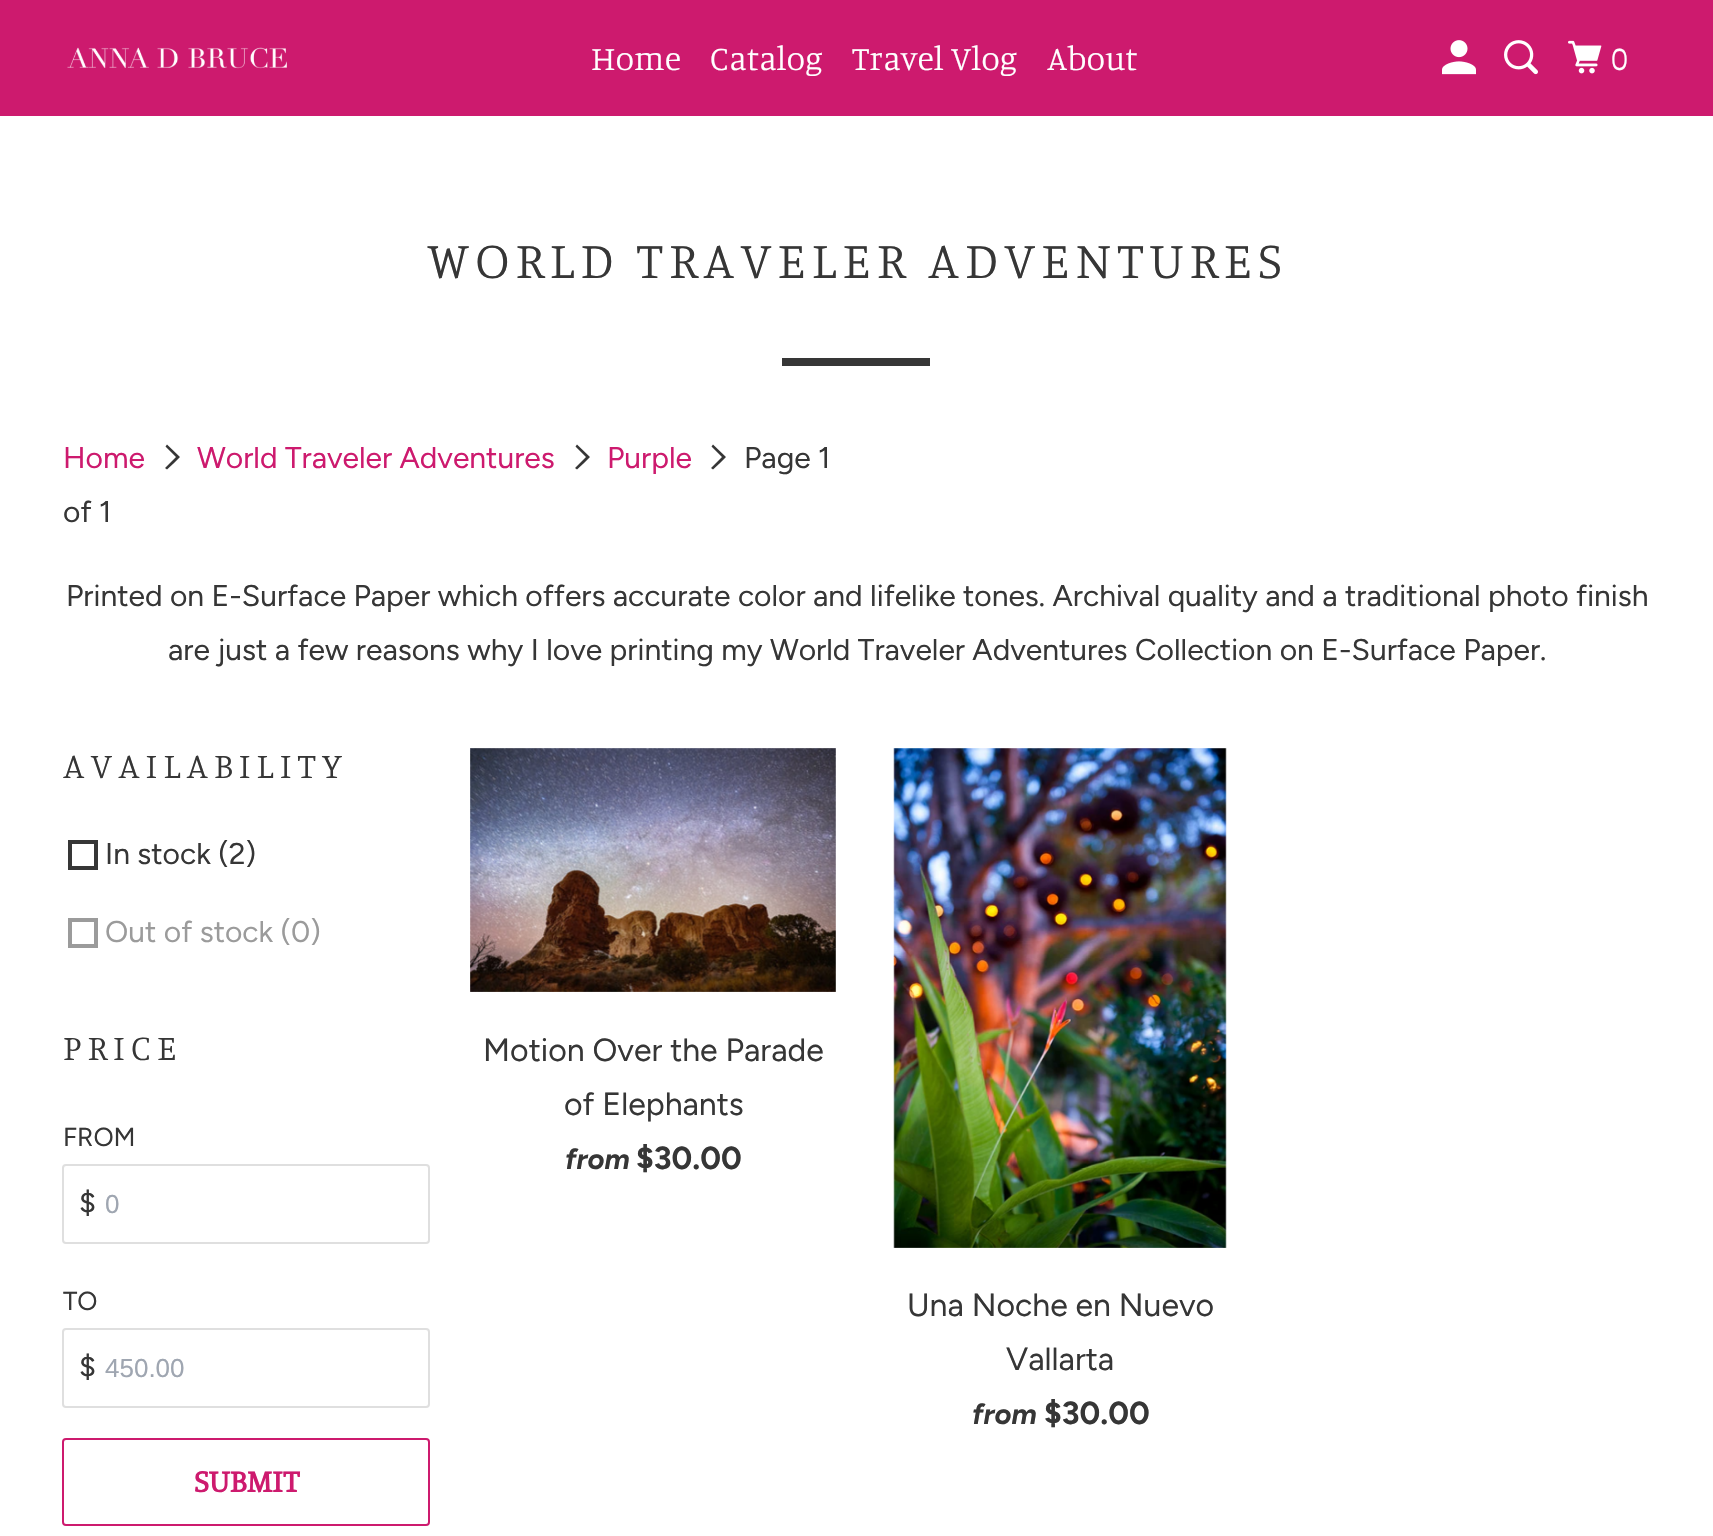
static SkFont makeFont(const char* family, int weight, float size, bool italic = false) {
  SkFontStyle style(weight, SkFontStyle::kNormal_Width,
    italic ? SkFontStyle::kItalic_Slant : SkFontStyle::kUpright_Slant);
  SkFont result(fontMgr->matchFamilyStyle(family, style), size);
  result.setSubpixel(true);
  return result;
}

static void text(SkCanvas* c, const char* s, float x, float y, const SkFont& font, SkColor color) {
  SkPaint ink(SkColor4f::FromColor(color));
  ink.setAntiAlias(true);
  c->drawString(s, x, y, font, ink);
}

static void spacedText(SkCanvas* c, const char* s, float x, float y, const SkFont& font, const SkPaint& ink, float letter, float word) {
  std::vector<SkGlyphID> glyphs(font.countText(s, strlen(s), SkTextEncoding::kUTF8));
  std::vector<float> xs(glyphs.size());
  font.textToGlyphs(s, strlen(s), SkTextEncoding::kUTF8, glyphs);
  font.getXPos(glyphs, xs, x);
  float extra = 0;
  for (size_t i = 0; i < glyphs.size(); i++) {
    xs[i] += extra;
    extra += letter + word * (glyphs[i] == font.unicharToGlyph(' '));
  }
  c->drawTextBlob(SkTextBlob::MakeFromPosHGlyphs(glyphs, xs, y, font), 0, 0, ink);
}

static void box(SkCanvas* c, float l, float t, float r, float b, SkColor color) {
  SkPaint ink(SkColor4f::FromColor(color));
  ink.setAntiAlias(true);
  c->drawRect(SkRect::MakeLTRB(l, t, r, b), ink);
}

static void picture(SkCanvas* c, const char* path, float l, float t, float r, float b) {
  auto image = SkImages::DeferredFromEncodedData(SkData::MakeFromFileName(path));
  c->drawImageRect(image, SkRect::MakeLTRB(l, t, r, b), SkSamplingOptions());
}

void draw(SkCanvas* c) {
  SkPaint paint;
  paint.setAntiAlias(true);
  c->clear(0xffffffff);
  box(c, 0, 0, 1713, 116, 0xffcd1a6e);
  picture(c, "img_01.png", 67, 47, 287, 69);
  SkFont face1 = makeFont("Manuale", 300, 34);
  text(c, "Home", 591, 70, face1, 0xffffffff);
  text(c, "Catalog", 710, 70, face1, 0xffffffff);
  text(c, "Travel Vlog", 852, 70, face1, 0xffffffff);
  text(c, "About", 1047, 70, face1, 0xffffffff);
  picture(c, "img_02.png", 1442, 40, 1476, 75);
  picture(c, "img_03.png", 1504, 40, 1538, 75);
  picture(c, "img_04.png", 1568, 40, 1602, 74);
  text(c, "0", 1611, 70, face1, 0xffffffff);
  SkFont face2 = makeFont("Manuale", 300, 52);
  paint.setColor(0xff363636);
  spacedText(c, "WORLD TRAVELER ADVENTURES", 427, 278, face2, paint, 6, 0);
  box(c, 782, 358, 930, 366, 0xff363636);
  SkFont face3 = makeFont("Figtree", 400, 30);
  text(c, "Home", 63, 468, face3, 0xffcd1a6e);
  c->drawPath(SkPathBuilder().moveTo(173.5f, 463.5f).lineTo(167, 469.5f).lineTo(165, 468).lineTo(176, 457).lineTo(165.5f, 446.5f).lineTo(167, 444.5f).lineTo(180, 457).close().detach(), paint);
  text(c, "World Traveler Adventures", 197, 468, face3, 0xffcd1a6e);
  c->drawPath(SkPathBuilder().moveTo(583.5f, 463.5f).lineTo(577, 469.5f).lineTo(575, 468).lineTo(586, 457).lineTo(575.5f, 446.5f).lineTo(577, 444.5f).lineTo(590, 457).close().detach(), paint);
  text(c, "Purple", 607, 468, face3, 0xffcd1a6e);
  c->drawPath(SkPathBuilder().moveTo(719.5f, 463.5f).lineTo(713, 469.5f).lineTo(711, 468).lineTo(722, 457).lineTo(711.5f, 446.5f).lineTo(713, 444.5f).lineTo(726, 457).close().detach(), paint);
  text(c, "Page 1", 744, 468, face3, 0xff363636);
  text(c, "of 1", 63, 522, face3, 0xff363636);
  text(c, "Printed on E-Surface Paper which offers accurate color and lifelike tones. Archival quality and a traditional photo finish", 66, 606, face3, 0xff363636);
  text(c, "are just a few reasons why I love printing my World Traveler Adventures Collection on E-Surface Paper.", 168, 660, face3, 0xff363636);
  SkFont face4 = makeFont("Manuale", 300, 36);
  spacedText(c, "AVAILABILITY", 63, 778, face4, paint, 6, 0);
  paint.setStyle(SkPaint::kStroke_Style);
  paint.setStrokeWidth(4);
  c->drawRect(SkRect::MakeLTRB(70, 842, 96, 868), paint);
  text(c, "In stock (2)", 105, 864, face3, 0xff363636);
  paint.setColor(0xff9b9b9b);
  c->drawRect(SkRect::MakeLTRB(70, 920, 96, 946), paint);
  text(c, "Out of stock (0)", 105, 942, face3, 0xff9b9b9b);
  paint.setStyle(SkPaint::kFill_Style);
  paint.setColor(0xff363636);
  spacedText(c, "PRICE", 63, 1060, face4, paint, 6, 0);
  SkFont face5 = makeFont("Figtree", 400, 26);
  text(c, "FROM", 63, 1146, face5, 0xff363636);
  paint.setStyle(SkPaint::kStroke_Style);
  paint.setStrokeWidth(2);
  paint.setColor(0xffdfdfdf);
  c->drawRoundRect(SkRect::MakeLTRB(63, 1165, 429, 1243), 3, 3, paint);
  text(c, "$", 79, 1213, face3, 0xff363636);
  SkFont face6 = makeFont("Liberation Sans", 400, 26);
  text(c, "0", 105, 1213, face6, 0xff9fa6b1);
  text(c, "TO", 63, 1310, face5, 0xff363636);
  c->drawRoundRect(SkRect::MakeLTRB(63, 1329, 429, 1407), 3, 3, paint);
  text(c, "$", 79, 1377, face3, 0xff363636);
  text(c, "450.00", 105, 1377, face6, 0xff9fa6b1);
  paint.setColor(0xffcd1a6e);
  c->drawRoundRect(SkRect::MakeLTRB(63, 1439, 429, 1525), 3, 3, paint);
  SkFont face7 = makeFont("Manuale", 700, 32);
  text(c, "SUBMIT", 194, 1492, face7, 0xffcd1a6e);
  picture(c, "img_05.png", 470, 748, 836, 992);
  SkFont face8 = makeFont("Figtree", 400, 32);
  text(c, "Motion Over the Parade", 483, 1061, face8, 0xff363636);
  text(c, "of Elephants", 564, 1115, face8, 0xff363636);
  SkFont face9 = makeFont("Figtree", 700, 29, true);
  text(c, "from", 565, 1169, face9, 0xff363636);
  SkFont face10 = makeFont("Figtree", 700, 32);
  text(c, "$30.00", 636, 1169, face10, 0xff363636);
  picture(c, "img_06.png", 893, 748, 1227, 1248);
  text(c, "Una Noche en Nuevo", 907, 1316, face8, 0xff363636);
  text(c, "Vallarta", 1006, 1370, face8, 0xff363636);
  text(c, "from", 972, 1424, face9, 0xff363636);
  text(c, "$30.00", 1044, 1424, face10, 0xff363636);
}
